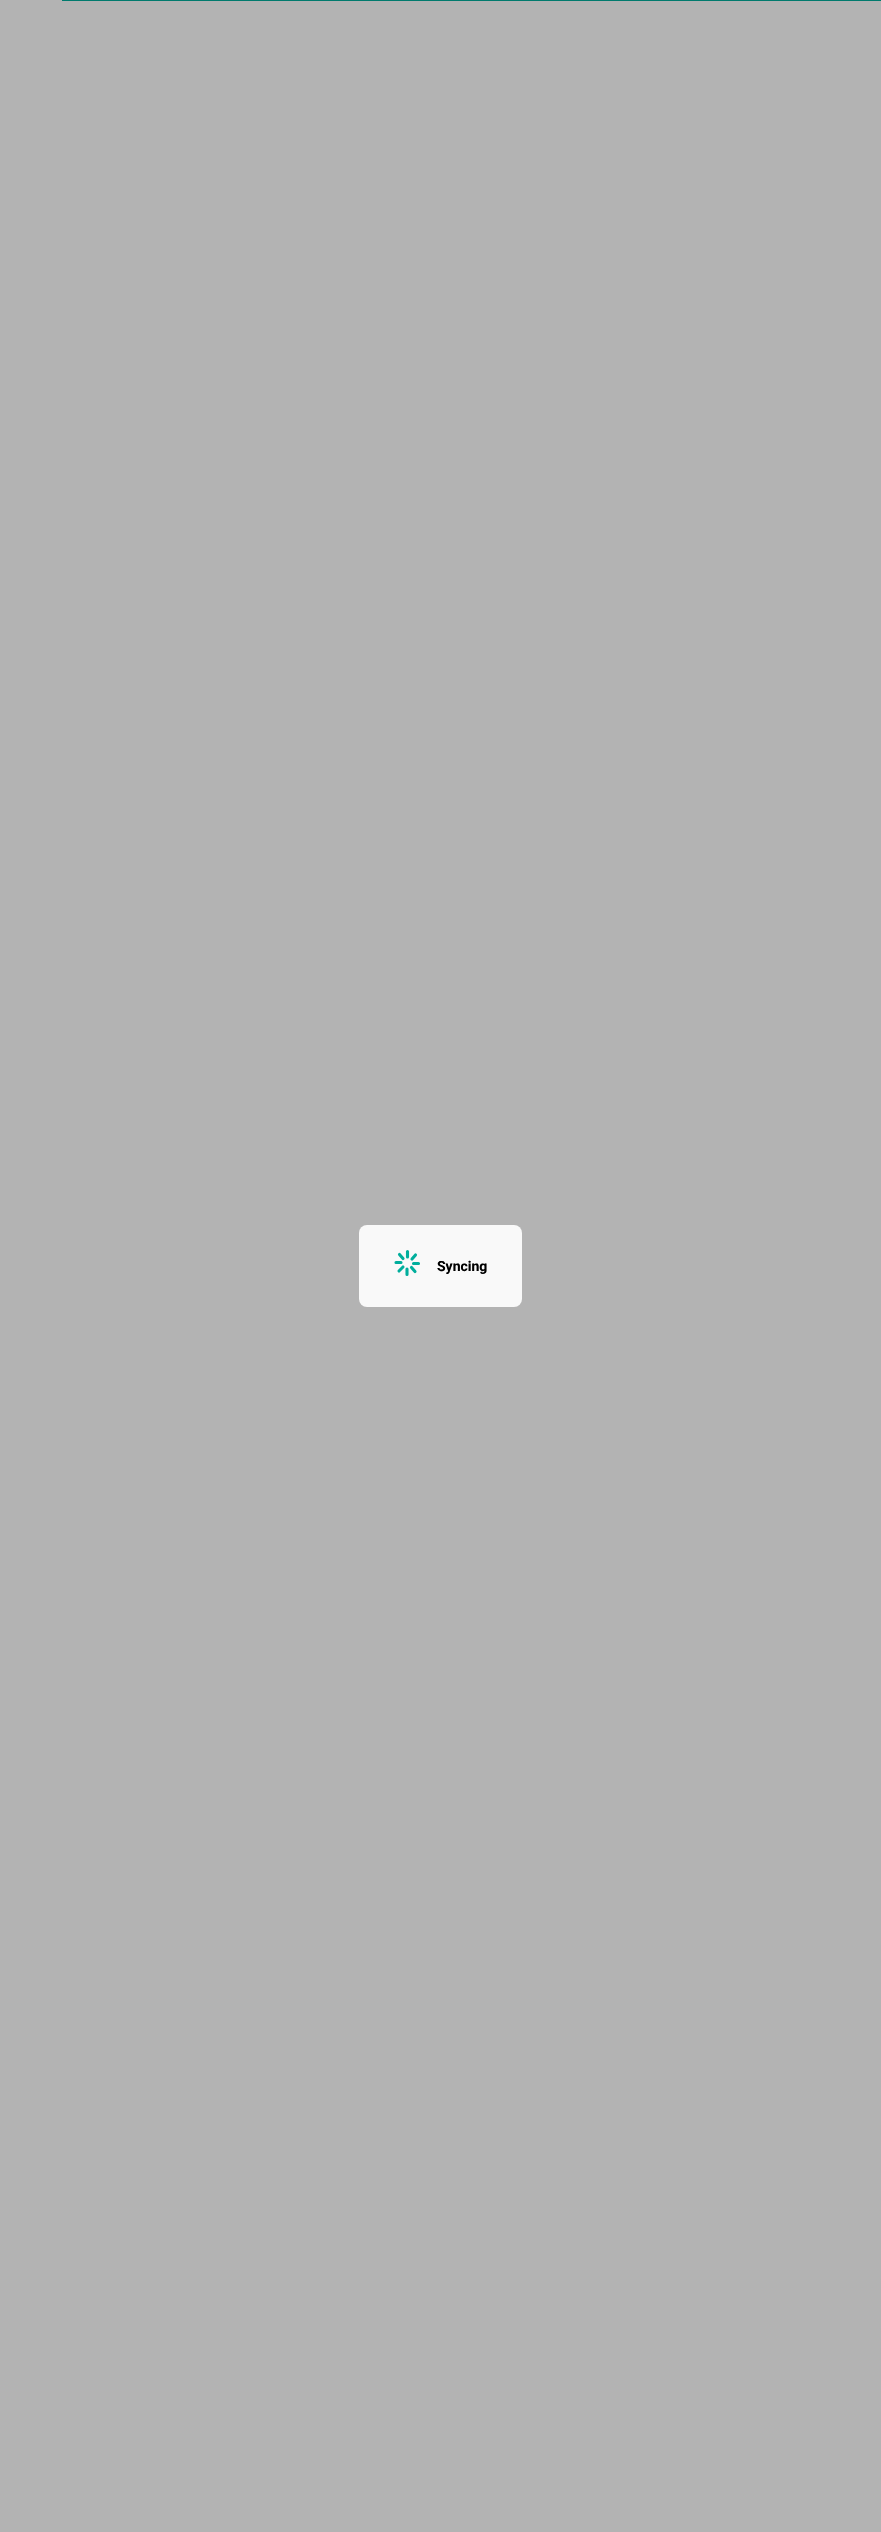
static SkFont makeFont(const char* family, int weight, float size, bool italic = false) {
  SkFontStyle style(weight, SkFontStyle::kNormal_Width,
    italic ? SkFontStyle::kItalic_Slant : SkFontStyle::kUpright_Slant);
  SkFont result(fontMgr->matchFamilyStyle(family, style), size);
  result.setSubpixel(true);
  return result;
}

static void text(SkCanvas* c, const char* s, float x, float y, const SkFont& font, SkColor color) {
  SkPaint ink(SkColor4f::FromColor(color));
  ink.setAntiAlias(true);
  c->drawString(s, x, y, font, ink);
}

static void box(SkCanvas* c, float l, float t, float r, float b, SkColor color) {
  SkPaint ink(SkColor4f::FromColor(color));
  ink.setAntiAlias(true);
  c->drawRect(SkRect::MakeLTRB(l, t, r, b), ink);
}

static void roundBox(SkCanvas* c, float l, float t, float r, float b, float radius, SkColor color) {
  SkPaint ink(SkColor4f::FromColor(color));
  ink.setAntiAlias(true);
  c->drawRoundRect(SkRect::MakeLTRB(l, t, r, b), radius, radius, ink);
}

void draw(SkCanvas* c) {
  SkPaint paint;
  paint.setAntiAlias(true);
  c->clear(0xffb3b3b3);
  box(c, 62, 0, 881, 1, 0xff007a6d);
  roundBox(c, 359, 1225, 522, 1307, 8, 0xfff9f9f9);
  paint.setStyle(SkPaint::kStroke_Style);
  paint.setStrokeWidth(3.1f);
  paint.setStrokeCap(SkPaint::kRound_Cap);
  paint.setColor(0xff00ae9c);
  c->drawPath(SkPathBuilder().moveTo(407.5f, 1257).lineTo(407.5f, 1251.5f).moveTo(412, 1259).lineTo(415.5f, 1255).moveTo(413.5f, 1263.5f).lineTo(418.5f, 1263.5f).moveTo(411.5f, 1267.5f).lineTo(415, 1271.5f).moveTo(407, 1269).lineTo(407, 1274.5f).moveTo(403, 1267).lineTo(399, 1271).moveTo(401, 1262.5f).lineTo(396, 1262.5f).moveTo(403, 1258.5f).lineTo(399.5f, 1254.5f).detach(), paint);
  SkFont face1 = makeFont("Roboto", 700, 14);
  text(c, "Syncing", 437, 1271, face1, 0xff000000);
}
